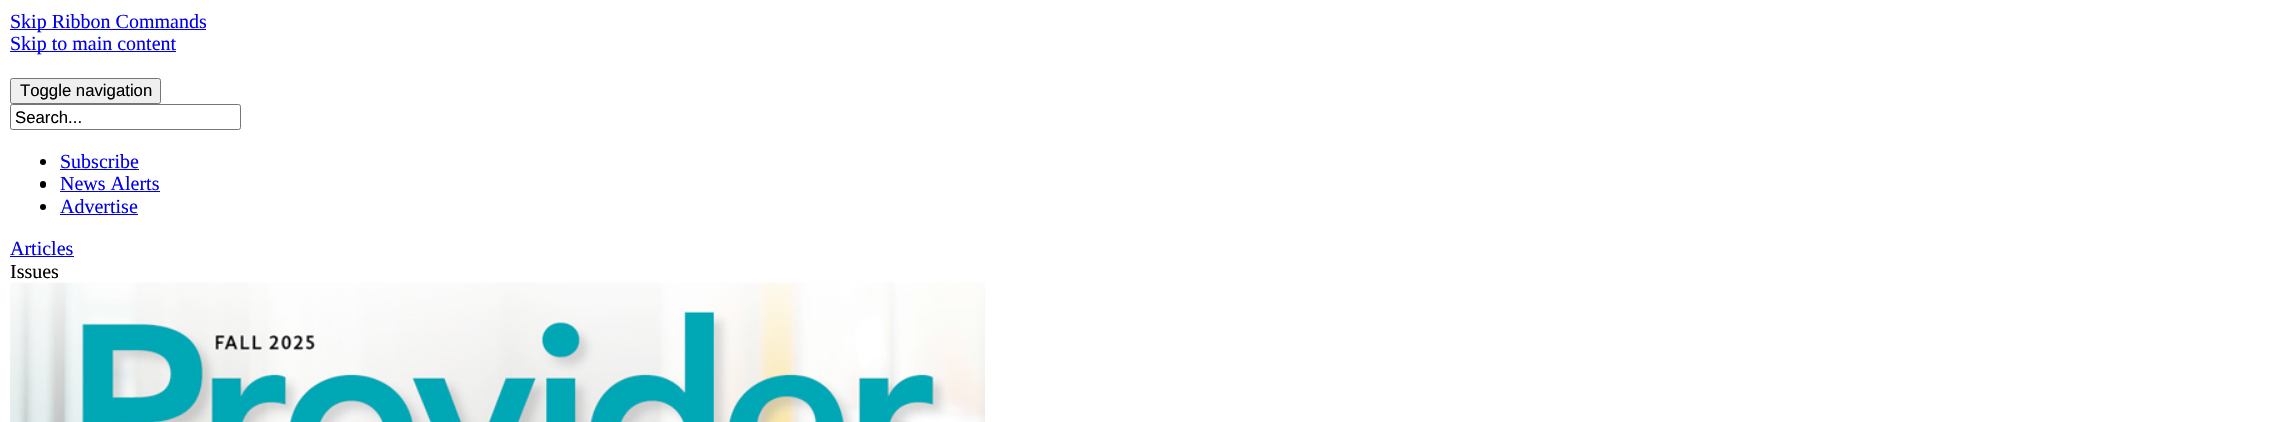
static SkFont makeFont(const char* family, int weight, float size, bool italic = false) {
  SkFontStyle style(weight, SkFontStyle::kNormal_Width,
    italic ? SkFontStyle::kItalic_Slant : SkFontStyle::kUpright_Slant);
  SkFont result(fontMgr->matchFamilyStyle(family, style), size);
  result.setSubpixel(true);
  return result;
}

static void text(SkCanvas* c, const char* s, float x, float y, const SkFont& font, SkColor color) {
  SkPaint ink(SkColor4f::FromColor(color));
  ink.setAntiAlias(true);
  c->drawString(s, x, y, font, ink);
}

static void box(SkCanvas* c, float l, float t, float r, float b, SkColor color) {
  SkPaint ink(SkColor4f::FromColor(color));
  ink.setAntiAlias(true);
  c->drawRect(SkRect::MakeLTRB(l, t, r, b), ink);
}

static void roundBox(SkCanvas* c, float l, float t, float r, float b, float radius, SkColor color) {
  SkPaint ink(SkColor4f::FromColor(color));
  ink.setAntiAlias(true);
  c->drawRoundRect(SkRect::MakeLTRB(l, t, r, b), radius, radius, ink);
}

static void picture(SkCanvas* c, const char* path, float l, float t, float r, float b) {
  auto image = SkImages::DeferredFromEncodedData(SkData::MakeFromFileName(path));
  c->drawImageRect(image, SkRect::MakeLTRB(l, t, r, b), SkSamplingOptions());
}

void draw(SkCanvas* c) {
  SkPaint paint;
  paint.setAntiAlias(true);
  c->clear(0xffffffff);
  box(c, 10, 29, 206, 30, 0xff0000ee);
  SkFont face1 = makeFont("Liberation Serif", 400, 20);
  text(c, "Skip Ribbon Commands", 10, 28, face1, 0xff0000ee);
  box(c, 10, 51, 176, 52, 0xff0000ee);
  text(c, "Skip to main content", 10, 50, face1, 0xff0000ee);
  paint.setColor(0xffefefef);
  c->drawRoundRect(SkRect::MakeLTRB(10.5f, 78.5f, 160.5f, 103.5f), 2, 2, paint);
  paint.setStyle(SkPaint::kStroke_Style);
  paint.setStrokeWidth(1);
  paint.setColor(0xff767676);
  c->drawRoundRect(SkRect::MakeLTRB(10.5f, 78.5f, 160.5f, 103.5f), 2, 2, paint);
  SkFont face2 = makeFont("Liberation Sans", 400, 16.75f);
  text(c, "Toggle navigation", 20, 96, face2, 0xff000000);
  c->drawRoundRect(SkRect::MakeLTRB(10.5f, 104.5f, 240.5f, 129.5f), 2, 2, paint);
  text(c, "Search...", 15, 123, face2, 0xff000000);
  paint.setStyle(SkPaint::kFill_Style);
  paint.setColor(0xff000000);
  c->drawCircle(43, 162, 3, paint);
  text(c, "Subscribe", 60, 168, face1, 0xff0000ee);
  box(c, 60, 169, 139, 170, 0xff0000ee);
  roundBox(c, 40, 181, 46, 188, 3, 0xff000000);
  text(c, "News Alerts", 60, 190, face1, 0xff0000ee);
  box(c, 60, 191, 160, 192, 0xff0000ee);
  c->drawCircle(43, 207, 3, paint);
  text(c, "Advertise", 60, 213, face1, 0xff0000ee);
  box(c, 60, 214, 138, 215, 0xff0000ee);
  text(c, "Articles", 10, 255, face1, 0xff0000ee);
  box(c, 10, 256, 74, 257, 0xff0000ee);
  text(c, "Issues", 10, 278, face1, 0xff000000);
  picture(c, "img_01.png", 10, 282, 985, 422);
}
